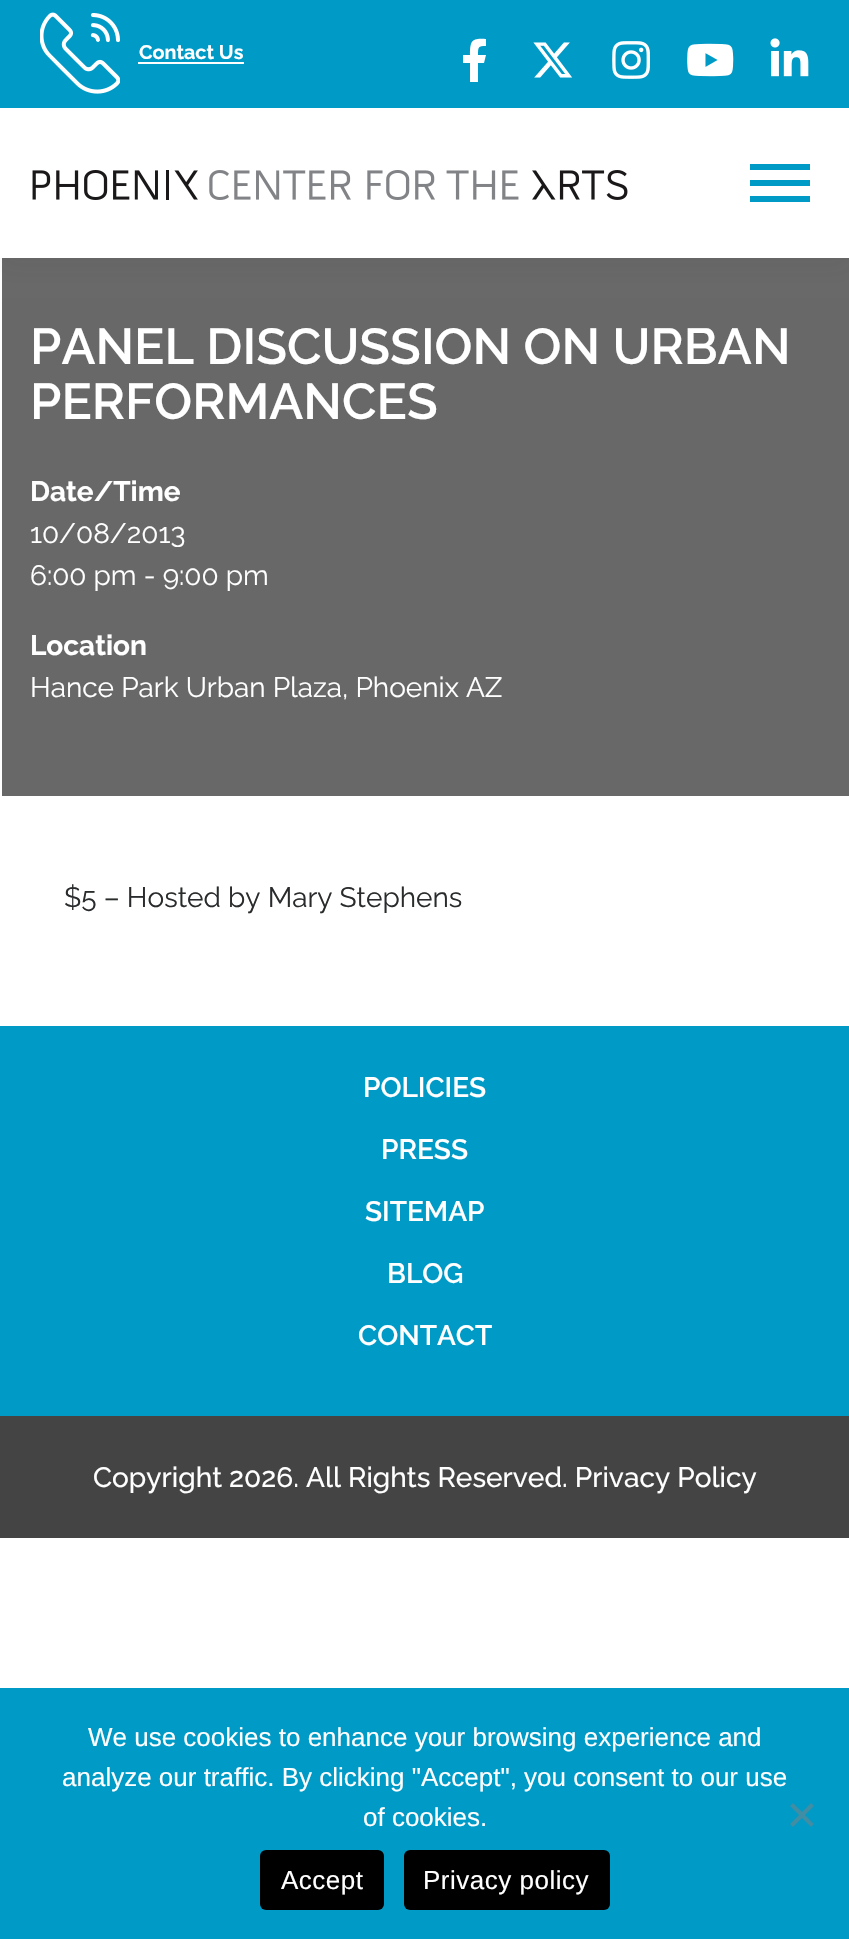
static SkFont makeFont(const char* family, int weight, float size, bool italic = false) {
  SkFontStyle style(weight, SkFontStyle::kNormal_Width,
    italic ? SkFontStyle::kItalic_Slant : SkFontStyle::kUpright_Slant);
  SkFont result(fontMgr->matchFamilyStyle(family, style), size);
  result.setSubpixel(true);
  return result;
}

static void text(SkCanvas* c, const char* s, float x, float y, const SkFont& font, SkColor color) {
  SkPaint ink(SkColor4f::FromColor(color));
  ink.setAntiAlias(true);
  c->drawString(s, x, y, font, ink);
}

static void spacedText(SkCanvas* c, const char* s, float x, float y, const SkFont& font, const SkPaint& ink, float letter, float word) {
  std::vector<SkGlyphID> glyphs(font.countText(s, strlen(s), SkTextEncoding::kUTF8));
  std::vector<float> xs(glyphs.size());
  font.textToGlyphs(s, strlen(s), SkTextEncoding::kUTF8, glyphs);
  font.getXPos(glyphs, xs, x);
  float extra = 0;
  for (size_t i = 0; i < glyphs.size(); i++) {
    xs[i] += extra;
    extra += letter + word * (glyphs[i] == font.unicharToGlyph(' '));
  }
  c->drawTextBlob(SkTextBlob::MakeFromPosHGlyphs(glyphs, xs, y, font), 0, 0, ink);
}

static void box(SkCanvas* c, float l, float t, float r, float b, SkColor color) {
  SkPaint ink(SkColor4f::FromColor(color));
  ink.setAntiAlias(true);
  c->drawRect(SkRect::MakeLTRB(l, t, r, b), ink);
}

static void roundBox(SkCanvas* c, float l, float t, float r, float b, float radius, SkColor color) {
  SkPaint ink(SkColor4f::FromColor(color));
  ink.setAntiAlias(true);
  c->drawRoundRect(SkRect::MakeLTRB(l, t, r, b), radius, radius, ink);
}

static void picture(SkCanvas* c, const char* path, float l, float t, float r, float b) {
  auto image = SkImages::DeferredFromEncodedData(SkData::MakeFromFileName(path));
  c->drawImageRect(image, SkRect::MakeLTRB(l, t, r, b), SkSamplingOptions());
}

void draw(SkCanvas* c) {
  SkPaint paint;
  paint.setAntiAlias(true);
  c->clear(0xffffffff);
  box(c, 2, 258, 849, 796, 0xff686868);
  paint.setColor(0x0f323232);
  paint.setMaskFilter(SkMaskFilter::MakeBlur(kNormal_SkBlurStyle, 10));
  c->drawRect(SkRect::MakeLTRB(0, 10, 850, 268), paint);
  paint.setMaskFilter(nullptr);
  box(c, 0, 108, 849, 258, 0xffffffff);
  box(c, 0, 0, 849, 108, 0xff009ac7);
  picture(c, "img_01.png", 40, 12, 120, 94);
  SkFont face1 = makeFont("Raleway", 700, 19.75f);
  text(c, "Contact Us", 139, 59, face1, 0xffffffff);
  box(c, 138, 62, 244, 64, 0xffffffff);
  paint.setColor(0xffffffff);
  c->drawPath(SkPathBuilder().moveTo(484, 63).lineTo(478, 63).lineTo(478, 82).lineTo(470, 82).lineTo(470, 63).lineTo(463, 63).lineTo(463, 55).lineTo(470, 55).cubicTo(470, 40, 472, 38, 486, 39).lineTo(486, 46).cubicTo(478, 46, 478, 47, 478, 55).lineTo(486, 55).close().detach(), paint);
  picture(c, "img_02.png", 533, 42, 572, 78);
  picture(c, "img_03.png", 612, 41, 650, 79);
  picture(c, "img_04.png", 687, 43, 734, 77);
  picture(c, "img_05.png", 770, 38, 809, 77);
  picture(c, "img_06.png", 32, 170, 628, 200);
  box(c, 750, 180, 810, 186, 0xff009ac7);
  box(c, 750, 164, 810, 170, 0xff009ac7);
  box(c, 750, 196, 810, 202, 0xff009ac7);
  SkFont face2 = makeFont("Raleway", 600, 50.4f);
  text(c, "PANEL DISCUSSION ON URBAN", 30, 364, face2, 0xffffffff);
  text(c, "PERFORMANCES", 30, 419, face2, 0xffffffff);
  SkFont face3 = makeFont("Raleway", 700, 28);
  text(c, "Date/Time", 30, 501, face3, 0xffffffff);
  SkFont face4 = makeFont("Raleway", 400, 28);
  text(c, "10/08/2013", 30, 543, face4, 0xffffffff);
  text(c, "6:00 pm - 9:00 pm", 30, 585, face4, 0xffffffff);
  text(c, "Location", 30, 655, face3, 0xffffffff);
  text(c, "Hance Park Urban Plaza, Phoenix AZ", 30, 697, face4, 0xffffffff);
  text(c, "$5 – Hosted by Mary Stephens", 64, 907, face4, 0xff292b2c);
  box(c, 0, 1026, 849, 1416, 0xff009ac7);
  SkFont face5 = makeFont("Raleway", 600, 28);
  text(c, "POLICIES", 363, 1097, face5, 0xffffffff);
  text(c, "PRESS", 381, 1159, face5, 0xffffffff);
  text(c, "SITEMAP", 365, 1221, face5, 0xffffffff);
  text(c, "BLOG", 387, 1283, face5, 0xffffffff);
  text(c, "CONTACT", 358, 1345, face5, 0xffffffff);
  box(c, 0, 1416, 849, 1538, 0xff444444);
  SkFont face6 = makeFont("Raleway", 500, 28);
  text(c, "Copyright 2026. All Rights Reserved. Privacy Policy", 93, 1487, face6, 0xffffffff);
  box(c, 0, 1688, 849, 1939, 0xff009ac7);
  SkFont face7 = makeFont("Liberation Sans", 400, 26);
  text(c, "We use cookies to enhance your browsing experience and", 88, 1746, face7, 0xffffffff);
  text(c, "analyze our traffic. By clicking \"Accept\", you consent to our use", 62, 1786, face7, 0xffffffff);
  text(c, "of cookies.", 363, 1826, face7, 0xffffffff);
  paint.setColor(0xff408da4);
  c->drawPath(SkPathBuilder().moveTo(811, 1803).lineTo(814, 1806).lineTo(793, 1827).lineTo(790, 1824).close().detach(), paint);
  c->drawPath(SkPathBuilder().moveTo(790, 1806).lineTo(793, 1803).lineTo(814, 1824).lineTo(811, 1827).close().detach(), paint);
  roundBox(c, 260, 1850, 384, 1910, 6, 0xff000000);
  paint.setColor(0xffffffff);
  spacedText(c, "Accept", 281, 1889, face7, paint, 0.5f, 0);
  roundBox(c, 404, 1850, 610, 1910, 6, 0xff000000);
  spacedText(c, "Privacy policy", 423, 1889, face7, paint, 0.5f, 0);
}
